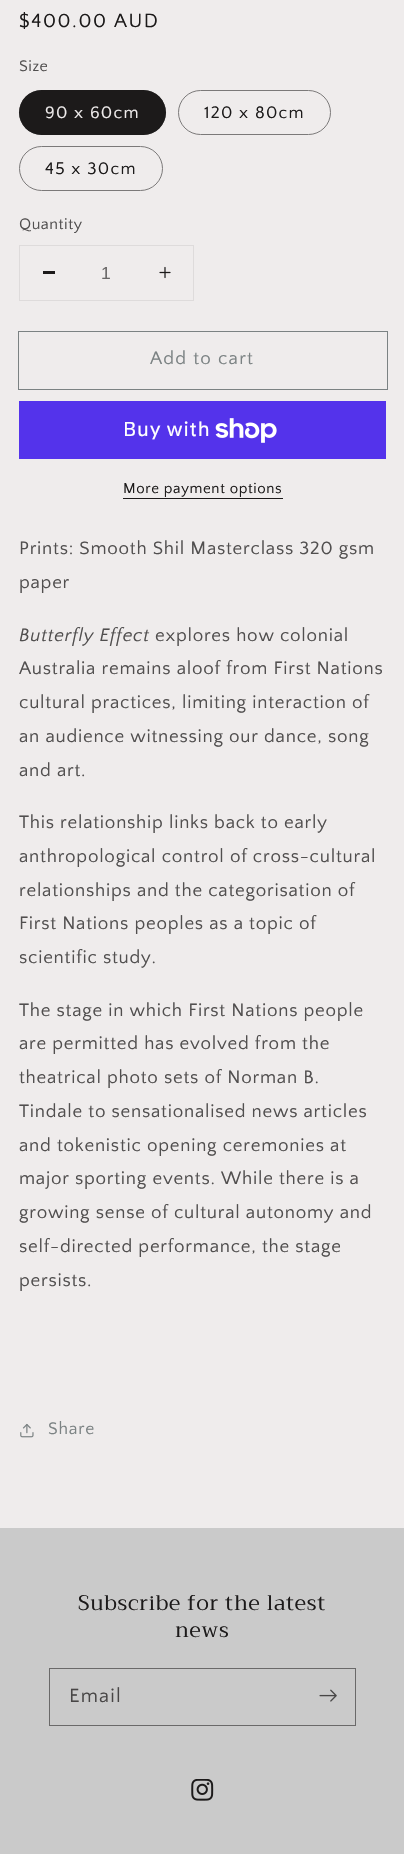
static SkFont makeFont(const char* family, int weight, float size, bool italic = false) {
  SkFontStyle style(weight, SkFontStyle::kNormal_Width,
    italic ? SkFontStyle::kItalic_Slant : SkFontStyle::kUpright_Slant);
  SkFont result(fontMgr->matchFamilyStyle(family, style), size);
  result.setSubpixel(true);
  return result;
}

static void text(SkCanvas* c, const char* s, float x, float y, const SkFont& font, SkColor color) {
  SkPaint ink(SkColor4f::FromColor(color));
  ink.setAntiAlias(true);
  c->drawString(s, x, y, font, ink);
}

static void spacedText(SkCanvas* c, const char* s, float x, float y, const SkFont& font, const SkPaint& ink, float letter, float word) {
  std::vector<SkGlyphID> glyphs(font.countText(s, strlen(s), SkTextEncoding::kUTF8));
  std::vector<float> xs(glyphs.size());
  font.textToGlyphs(s, strlen(s), SkTextEncoding::kUTF8, glyphs);
  font.getXPos(glyphs, xs, x);
  float extra = 0;
  for (size_t i = 0; i < glyphs.size(); i++) {
    xs[i] += extra;
    extra += letter + word * (glyphs[i] == font.unicharToGlyph(' '));
  }
  c->drawTextBlob(SkTextBlob::MakeFromPosHGlyphs(glyphs, xs, y, font), 0, 0, ink);
}

static void box(SkCanvas* c, float l, float t, float r, float b, SkColor color) {
  SkPaint ink(SkColor4f::FromColor(color));
  ink.setAntiAlias(true);
  c->drawRect(SkRect::MakeLTRB(l, t, r, b), ink);
}

static void roundBox(SkCanvas* c, float l, float t, float r, float b, float radius, SkColor color) {
  SkPaint ink(SkColor4f::FromColor(color));
  ink.setAntiAlias(true);
  c->drawRoundRect(SkRect::MakeLTRB(l, t, r, b), radius, radius, ink);
}

static void picture(SkCanvas* c, const char* path, float l, float t, float r, float b) {
  auto image = SkImages::DeferredFromEncodedData(SkData::MakeFromFileName(path));
  c->drawImageRect(image, SkRect::MakeLTRB(l, t, r, b), SkSamplingOptions());
}

void draw(SkCanvas* c) {
  SkPaint paint;
  paint.setAntiAlias(true);
  c->clear(0xffefecec);
  SkFont face1 = makeFont("Quattrocento Sans", 400, 20);
  paint.setColor(0xff1c1a1a);
  spacedText(c, "$400.00 AUD", 19, 27, face1, paint, 1.6f, 0);
  SkFont face2 = makeFont("Quattrocento Sans", 400, 16);
  paint.setColor(0xff514f4f);
  spacedText(c, "Size", 19, 71, face2, paint, 0.5f, 0);
  roundBox(c, 19, 90, 166, 135, 22.5f, 0xff1c1a1a);
  paint.setStyle(SkPaint::kStroke_Style);
  paint.setStrokeWidth(1);
  paint.setColor(0x8c1c1a1a);
  c->drawRoundRect(SkRect::MakeLTRB(19.5f, 90.5f, 165.5f, 134.5f), 22, 22, paint);
  SkFont face3 = makeFont("Quattrocento Sans", 400, 17.5f);
  paint.setStyle(SkPaint::kFill_Style);
  paint.setColor(0xffefecec);
  spacedText(c, "90 x 60cm", 45, 118, face3, paint, 1.25f, 0);
  paint.setStyle(SkPaint::kStroke_Style);
  paint.setColor(0xff7b7979);
  c->drawRoundRect(SkRect::MakeLTRB(178.5f, 90.5f, 330.5f, 134.5f), 22, 22, paint);
  paint.setStyle(SkPaint::kFill_Style);
  paint.setColor(0xff1c1a1a);
  spacedText(c, "120 x 80cm", 204, 118, face3, paint, 1.25f, 0);
  paint.setStyle(SkPaint::kStroke_Style);
  paint.setColor(0xff7b7979);
  c->drawRoundRect(SkRect::MakeLTRB(19.5f, 146.5f, 162.5f, 190.5f), 22, 22, paint);
  paint.setStyle(SkPaint::kFill_Style);
  paint.setColor(0xff1c1a1a);
  spacedText(c, "45 x 30cm", 45, 174, face3, paint, 1.25f, 0);
  paint.setColor(0xff514f4f);
  spacedText(c, "Quantity", 19, 229, face2, paint, 0.5f, 0);
  paint.setStyle(SkPaint::kStroke_Style);
  paint.setColor(0xffdedbdb);
  c->drawRect(SkRect::MakeLTRB(19.5f, 245.5f, 193.5f, 300.5f), paint);
  box(c, 43, 271, 55, 274, 0xff1c1a1a);
  SkFont face4 = makeFont("Liberation Sans", 400, 17.5f);
  text(c, "1", 101, 279, face4, 0xff696767);
  picture(c, "img_01.png", 159, 266, 171, 279);
  paint.setColor(0xff7b8283);
  c->drawRect(SkRect::MakeLTRB(18.5f, 331.5f, 387.5f, 389.5f), paint);
  SkFont face5 = makeFont("Quattrocento Sans", 400, 18.75f);
  paint.setStyle(SkPaint::kFill_Style);
  spacedText(c, "Add to cart", 150, 364, face5, paint, 1.25f, 0);
  box(c, 19, 401, 386, 459, 0xff5433eb);
  SkFont face6 = makeFont("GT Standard", 400, 20);
  paint.setColor(0xffffffff);
  spacedText(c, "Buy with", 123, 436, face6, paint, 0.75f, 0);
  picture(c, "img_02.png", 215, 418, 277, 443);
  SkFont face7 = makeFont("Quattrocento Sans", 400, 15);
  paint.setColor(0xff1c1a1a);
  spacedText(c, "More payment options", 123, 493, face7, paint, 0.6f, 0);
  box(c, 123, 498, 283, 499, 0xff1c1a1a);
  paint.setColor(0xff514f4f);
  spacedText(c, "Prints: Smooth Shil Masterclass 320 gsm", 19, 554, face5, paint, 0.75f, 0);
  spacedText(c, "paper", 19, 588, face5, paint, 0.75f, 0);
  SkFont face8 = makeFont("Quattrocento Sans", 400, 18.75f, true);
  spacedText(c, "Butterfly Effect", 19, 641, face8, paint, 0.75f, 0);
  spacedText(c, "explores how colonial", 155, 641, face5, paint, 0.75f, 0);
  spacedText(c, "Australia remains aloof from First Nations", 19, 674, face5, paint, 0.75f, 0);
  spacedText(c, "cultural practices, limiting interaction of", 19, 708, face5, paint, 0.75f, 0);
  spacedText(c, "an audience witnessing our dance, song", 19, 742, face5, paint, 0.75f, 0);
  spacedText(c, "and art.", 19, 776, face5, paint, 0.75f, 0);
  spacedText(c, "This relationship links back to early", 19, 828, face5, paint, 0.75f, 0);
  spacedText(c, "anthropological control of cross-cultural", 19, 862, face5, paint, 0.75f, 0);
  spacedText(c, "relationships and the categorisation of", 19, 896, face5, paint, 0.75f, 0);
  spacedText(c, "First Nations peoples as a topic of", 19, 929, face5, paint, 0.75f, 0);
  spacedText(c, "scientific study.", 19, 963, face5, paint, 0.75f, 0);
  spacedText(c, "The stage in which First Nations people", 19, 1016, face5, paint, 0.75f, 0);
  spacedText(c, "are permitted has evolved from the", 19, 1049, face5, paint, 0.75f, 0);
  spacedText(c, "theatrical photo sets of Norman B.", 19, 1083, face5, paint, 0.75f, 0);
  spacedText(c, "Tindale to sensationalised news articles", 19, 1117, face5, paint, 0.75f, 0);
  spacedText(c, "and tokenistic opening ceremonies at", 19, 1151, face5, paint, 0.75f, 0);
  spacedText(c, "major sporting events. While there is a", 19, 1184, face5, paint, 0.75f, 0);
  spacedText(c, "growing sense of cultural autonomy and", 19, 1218, face5, paint, 0.75f, 0);
  spacedText(c, "self-directed performance, the stage", 19, 1252, face5, paint, 0.75f, 0);
  spacedText(c, "persists.", 19, 1286, face5, paint, 0.75f, 0);
  picture(c, "img_03.png", 20, 1423, 34, 1438);
  paint.setColor(0xff7b8283);
  spacedText(c, "Share", 48, 1434, face3, paint, 0.75f, 0);
  box(c, 0, 1528, 404, 1854, 0xffcacaca);
  SkFont face9 = makeFont("Trirong", 400, 21);
  paint.setColor(0xff1c1a1a);
  spacedText(c, "Subscribe for the latest", 78, 1610, face9, paint, 0.75f, 0);
  spacedText(c, "news", 175, 1637, face9, paint, 0.75f, 0);
  paint.setStyle(SkPaint::kStroke_Style);
  paint.setColor(0xff6a6969);
  c->drawRect(SkRect::MakeLTRB(49.5f, 1668.5f, 355.5f, 1725.5f), paint);
  paint.setStyle(SkPaint::kFill_Style);
  paint.setColor(0xff484646);
  spacedText(c, "Email", 69, 1702, face1, paint, 1.25f, 0);
  picture(c, "img_04.png", 319, 1689, 337, 1702);
  picture(c, "img_05.png", 191, 1779, 214, 1801);
}
